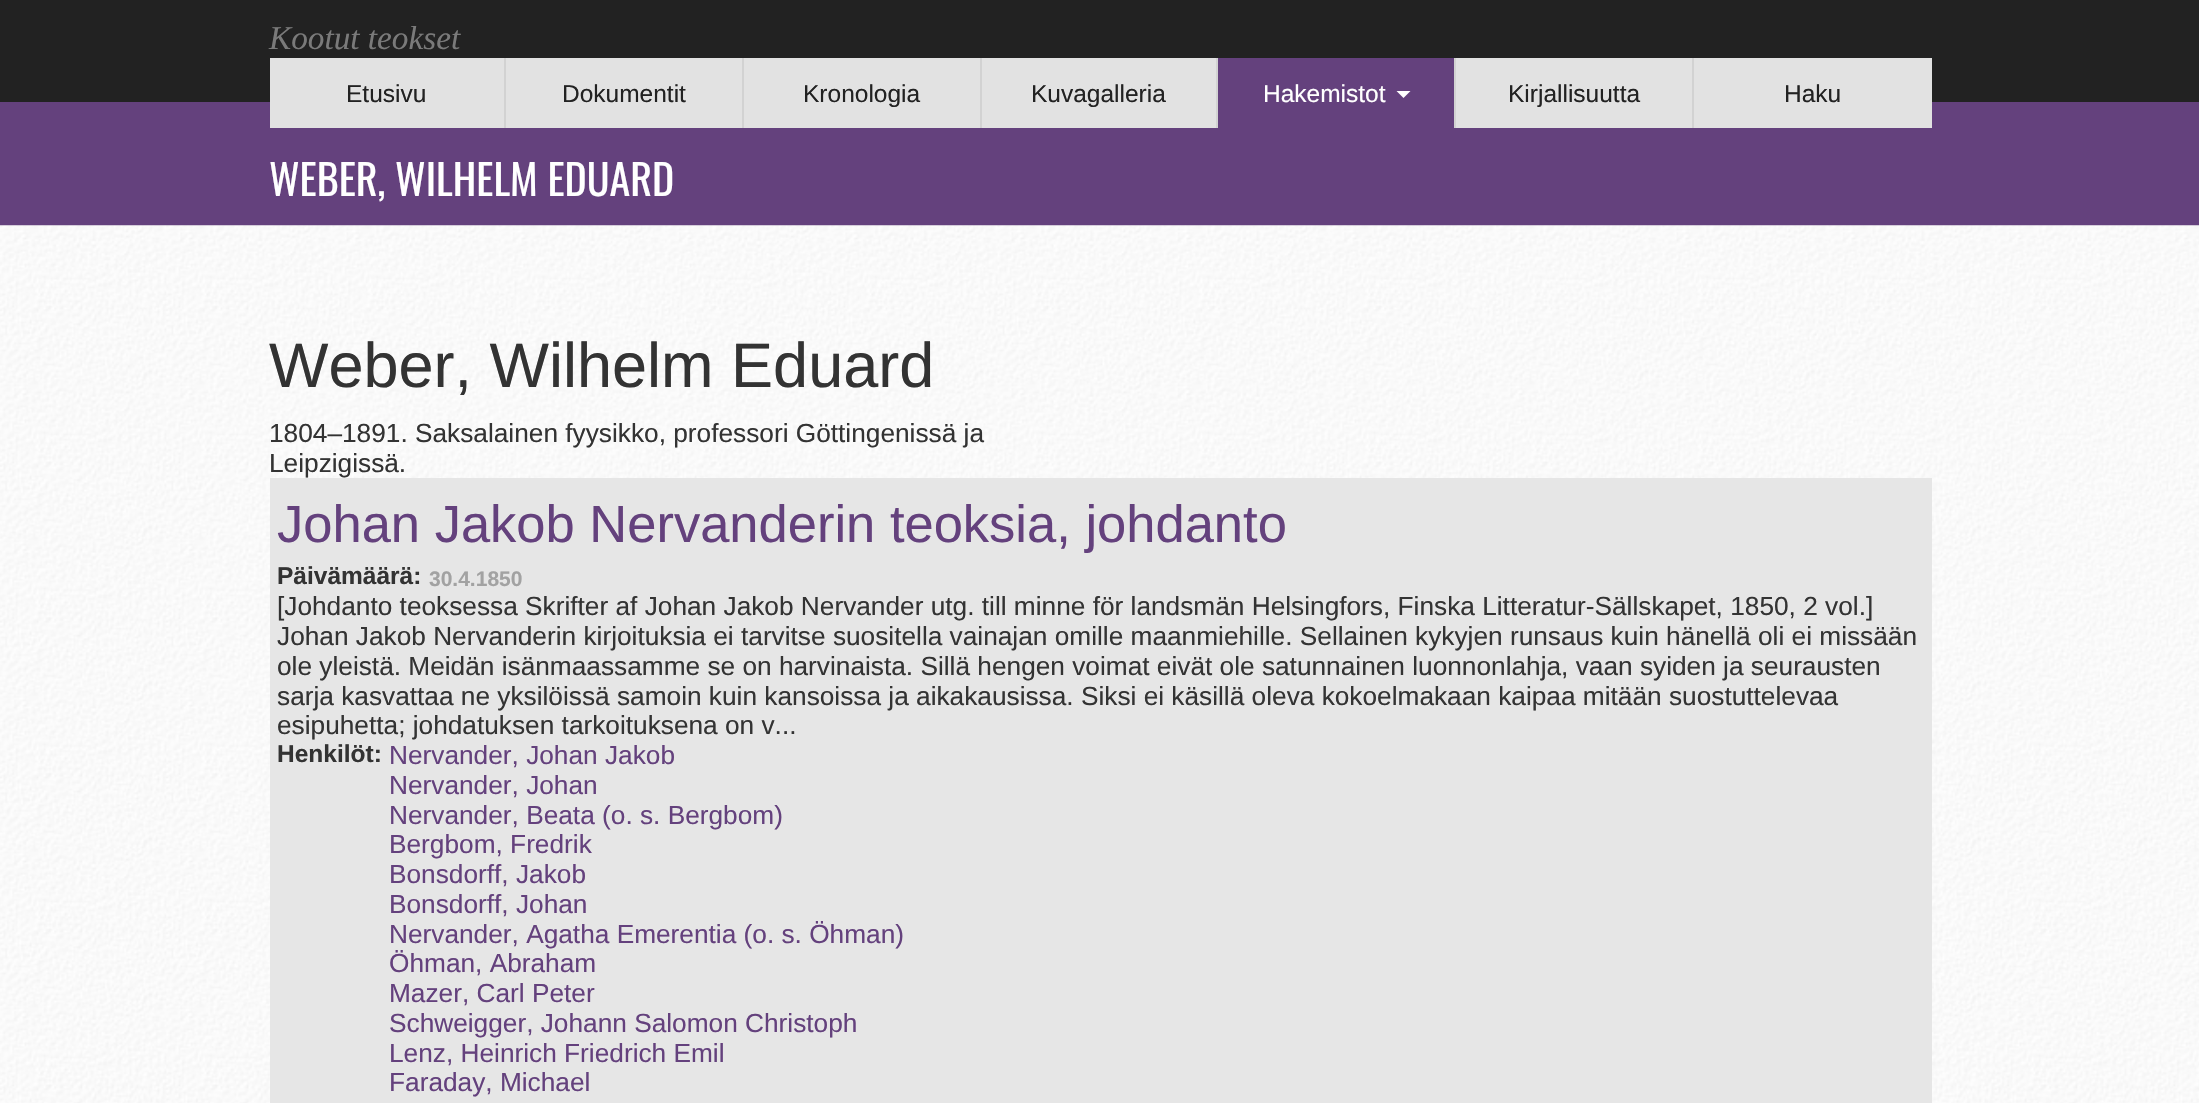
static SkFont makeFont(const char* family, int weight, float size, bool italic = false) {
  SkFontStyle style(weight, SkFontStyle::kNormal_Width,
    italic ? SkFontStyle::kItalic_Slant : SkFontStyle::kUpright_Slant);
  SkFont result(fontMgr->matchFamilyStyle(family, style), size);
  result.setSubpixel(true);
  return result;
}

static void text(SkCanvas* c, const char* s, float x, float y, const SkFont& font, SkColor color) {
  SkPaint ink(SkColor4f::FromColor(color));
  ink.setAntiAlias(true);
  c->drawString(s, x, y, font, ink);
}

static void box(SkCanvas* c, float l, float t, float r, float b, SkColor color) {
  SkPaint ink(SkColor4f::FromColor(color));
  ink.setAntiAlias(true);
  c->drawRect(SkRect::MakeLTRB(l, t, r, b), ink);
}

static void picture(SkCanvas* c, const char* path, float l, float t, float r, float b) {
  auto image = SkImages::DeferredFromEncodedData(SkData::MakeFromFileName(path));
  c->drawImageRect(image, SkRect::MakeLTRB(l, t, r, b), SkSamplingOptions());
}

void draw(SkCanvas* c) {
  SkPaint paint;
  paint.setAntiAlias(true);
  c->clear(0xff222222);
  SkFont face1 = makeFont("Liberation Serif", 400, 33.25f, true);
  text(c, "Kootut teokset", 269, 49, face1, 0xff7a7a7a);
  box(c, 0, 102, 2199, 226, 0xff64417d);
  box(c, 270, 58, 1932, 128, 0xffe2e2e2);
  box(c, 504, 58, 506, 128, 0xffd2d2d2);
  SkFont face2 = makeFont("Liberation Sans", 400, 24.5f);
  text(c, "Etusivu", 346, 102, face2, 0xff222222);
  box(c, 742, 58, 744, 128, 0xffd2d2d2);
  text(c, "Dokumentit", 562, 102, face2, 0xff222222);
  box(c, 980, 58, 982, 128, 0xffd2d2d2);
  text(c, "Kronologia", 803, 102, face2, 0xff222222);
  box(c, 1216, 58, 1218, 128, 0xffd2d2d2);
  text(c, "Kuvagalleria", 1031, 102, face2, 0xff222222);
  box(c, 1218, 58, 1454, 128, 0xff64417d);
  box(c, 1454, 58, 1456, 128, 0xffd2d2d2);
  text(c, "Hakemistot", 1263, 102, face2, 0xffffffff);
  paint.setColor(0xffffffff);
  c->drawPath(SkPathBuilder().moveTo(1396.5f, 91).lineTo(1410.5f, 91).lineTo(1403.5f, 98).close().detach(), paint);
  box(c, 1692, 58, 1694, 128, 0xffd2d2d2);
  text(c, "Kirjallisuutta", 1508, 102, face2, 0xff222222);
  text(c, "Haku", 1784, 102, face2, 0xff222222);
  SkFont face3 = makeFont("Oswald", 400, 42);
  text(c, "WEBER, WILHELM EDUARD", 269, 196, face3, 0xffffffff);
  picture(c, "img_01.png", 0, 225, 2199, 1103);
  SkFont face4 = makeFont("Liberation Sans", 400, 63);
  text(c, "Weber, Wilhelm Eduard", 269, 387, face4, 0xff333333);
  SkFont face5 = makeFont("Liberation Sans", 400, 26.25f);
  text(c, "1804–1891. Saksalainen fyysikko, professori Göttingenissä ja", 269, 442, face5, 0xff333333);
  text(c, "Leipzigissä.", 269, 472, face5, 0xff333333);
  box(c, 270, 478, 1932, 1103, 0xffe6e6e6);
  SkFont face6 = makeFont("Liberation Sans", 400, 52.5f);
  text(c, "Johan Jakob Nervanderin teoksia, johdanto", 277, 542, face6, 0xff64417d);
  SkFont face7 = makeFont("Liberation Sans", 700, 24.5f);
  text(c, "Päivämäärä:", 277, 584, face7, 0xff333333);
  SkFont face8 = makeFont("Liberation Sans", 700, 21);
  text(c, "30.4.1850", 429, 586, face8, 0xffa2a2a2);
  text(c, "[Johdanto teoksessa Skrifter af Johan Jakob Nervander utg. till minne för landsmän Helsingfors, Finska Litteratur-Sällskapet, 1850, 2 vol.]", 277, 615, face5, 0xff333333);
  text(c, "Johan Jakob Nervanderin kirjoituksia ei tarvitse suositella vainajan omille maanmiehille. Sellainen kykyjen runsaus kuin hänellä oli ei missään", 277, 645, face5, 0xff333333);
  text(c, "ole yleistä. Meidän isänmaassamme se on harvinaista. Sillä hengen voimat eivät ole satunnainen luonnonlahja, vaan syiden ja seurausten", 277, 675, face5, 0xff333333);
  text(c, "sarja kasvattaa ne yksilöissä samoin kuin kansoissa ja aikakausissa. Siksi ei käsillä oleva kokoelmakaan kaipaa mitään suostuttelevaa", 277, 705, face5, 0xff333333);
  text(c, "esipuhetta; johdatuksen tarkoituksena on v...", 277, 734, face5, 0xff333333);
  text(c, "Henkilöt:", 277, 762, face7, 0xff333333);
  text(c, "Nervander, Johan Jakob", 389, 764, face5, 0xff64417d);
  text(c, "Nervander, Johan", 389, 794, face5, 0xff64417d);
  text(c, "Nervander, Beata (o. s. Bergbom)", 389, 824, face5, 0xff64417d);
  text(c, "Bergbom, Fredrik", 389, 853, face5, 0xff64417d);
  text(c, "Bonsdorff, Jakob", 389, 883, face5, 0xff64417d);
  text(c, "Bonsdorff, Johan", 389, 913, face5, 0xff64417d);
  text(c, "Nervander, Agatha Emerentia (o. s. Öhman)", 389, 943, face5, 0xff64417d);
  text(c, "Öhman, Abraham", 389, 972, face5, 0xff64417d);
  text(c, "Mazer, Carl Peter", 389, 1002, face5, 0xff64417d);
  text(c, "Schweigger, Johann Salomon Christoph", 389, 1032, face5, 0xff64417d);
  text(c, "Lenz, Heinrich Friedrich Emil", 389, 1062, face5, 0xff64417d);
  text(c, "Faraday, Michael", 389, 1091, face5, 0xff64417d);
}
